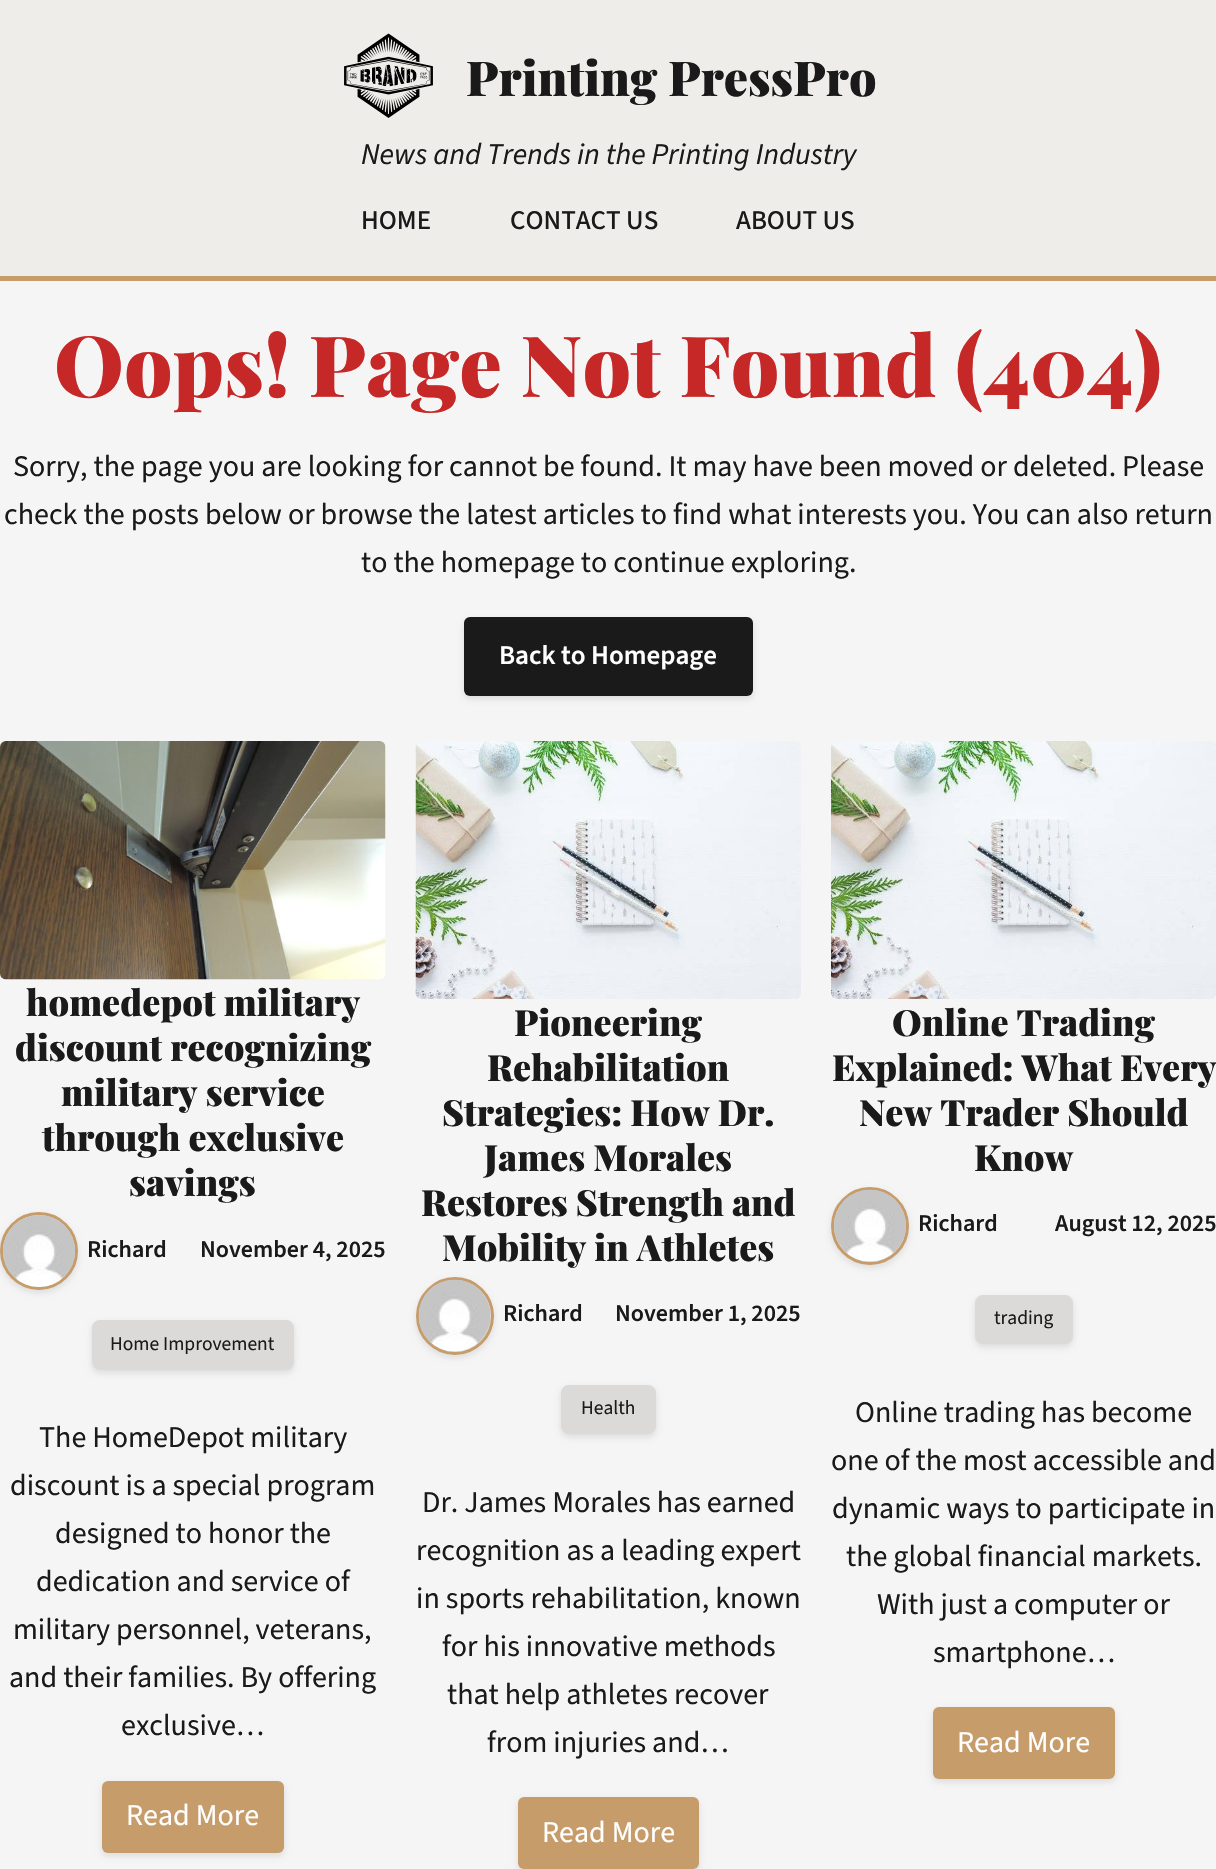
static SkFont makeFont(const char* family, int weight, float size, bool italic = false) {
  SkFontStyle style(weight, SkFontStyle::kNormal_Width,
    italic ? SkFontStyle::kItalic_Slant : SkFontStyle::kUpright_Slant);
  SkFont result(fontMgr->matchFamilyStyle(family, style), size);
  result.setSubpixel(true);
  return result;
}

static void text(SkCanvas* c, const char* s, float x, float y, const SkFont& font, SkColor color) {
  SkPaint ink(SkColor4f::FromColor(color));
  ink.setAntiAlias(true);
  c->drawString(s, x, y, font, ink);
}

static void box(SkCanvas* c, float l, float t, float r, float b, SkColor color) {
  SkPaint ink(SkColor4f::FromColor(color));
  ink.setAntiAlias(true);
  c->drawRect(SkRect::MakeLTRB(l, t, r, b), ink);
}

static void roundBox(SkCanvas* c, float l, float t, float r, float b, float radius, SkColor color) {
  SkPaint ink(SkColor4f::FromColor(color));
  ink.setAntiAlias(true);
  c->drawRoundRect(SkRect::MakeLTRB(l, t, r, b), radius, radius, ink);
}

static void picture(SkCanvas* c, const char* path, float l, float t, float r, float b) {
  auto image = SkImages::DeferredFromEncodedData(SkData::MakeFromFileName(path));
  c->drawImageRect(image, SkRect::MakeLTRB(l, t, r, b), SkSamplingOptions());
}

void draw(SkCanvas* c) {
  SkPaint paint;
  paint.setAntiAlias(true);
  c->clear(0xfff5f5f5);
  box(c, 0, 0, 1216, 276, 0xffefedea);
  box(c, 0, 276, 1216, 281, 0xffc69c6a);
  picture(c, "img_01.png", 344, 33, 433, 118);
  SkFont face1 = makeFont("Playfair Display", 900, 48);
  text(c, "Printing PressPro", 466, 96, face1, 0xff1a1a1a);
  SkFont face2 = makeFont("Source Sans 3", 400, 30, true);
  text(c, "News and Trends in the Printing Industry", 361, 164, face2, 0xff1a1a1a);
  SkFont face3 = makeFont("Source Sans 3", 500, 27);
  text(c, "HOME", 361, 229, face3, 0xff1a1a1a);
  text(c, "CONTACT US", 510, 229, face3, 0xff1a1a1a);
  text(c, "ABOUT US", 736, 229, face3, 0xff1a1a1a);
  SkFont face4 = makeFont("Playfair Display", 900, 84.5f);
  text(c, "Oops! Page Not Found (404)", 54, 397, face4, 0xffc62828);
  SkFont face5 = makeFont("Source Sans 3", 400, 30);
  text(c, "Sorry, the page you are looking for cannot be found. It may have been moved or deleted. Please", 13, 476, face5, 0xff1a1a1a);
  text(c, "check the posts below or browse the latest articles to find what interests you. You can also return", 4, 524, face5, 0xff1a1a1a);
  text(c, "to the homepage to continue exploring.", 361, 572, face5, 0xff1a1a1a);
  paint.setColor(0x1a000000);
  paint.setMaskFilter(SkMaskFilter::MakeBlur(kNormal_SkBlurStyle, 3));
  c->drawRoundRect(SkRect::MakeLTRB(464, 620, 753, 699), 6, 6, paint);
  paint.setMaskFilter(nullptr);
  roundBox(c, 464, 617, 753, 696, 6, 0xff1a1a1a);
  SkFont face6 = makeFont("Source Sans 3", 600, 27);
  text(c, "Back to Homepage", 499, 664, face6, 0xffffffff);
  picture(c, "img_02.png", 0, 741, 386, 980);
  SkFont face7 = makeFont("Playfair Display", 900, 36);
  text(c, "homedepot military", 26, 1016, face7, 0xff1a1a1a);
  text(c, "discount recognizing", 15, 1061, face7, 0xff1a1a1a);
  text(c, "military service", 61, 1106, face7, 0xff1a1a1a);
  text(c, "through exclusive", 42, 1151, face7, 0xff1a1a1a);
  text(c, "savings", 129, 1196, face7, 0xff1a1a1a);
  paint.setMaskFilter(SkMaskFilter::MakeBlur(kNormal_SkBlurStyle, 3));
  c->drawRoundRect(SkRect::MakeLTRB(0, 1215, 78, 1293), 39, 39, paint);
  paint.setMaskFilter(nullptr);
  paint.setStyle(SkPaint::kStroke_Style);
  paint.setStrokeWidth(3);
  paint.setColor(0xffc69c6a);
  c->drawCircle(39, 1251, 37.5f, paint);
  picture(c, "img_03.png", 3, 1215, 75, 1287);
  SkFont face8 = makeFont("Source Sans 3", 600, 24);
  text(c, "Richard", 87, 1257, face8, 0xff1a1a1a);
  text(c, "November 4, 2025", 200, 1257, face8, 0xff1a1a1a);
  paint.setStyle(SkPaint::kFill_Style);
  paint.setColor(0x1a000000);
  paint.setMaskFilter(SkMaskFilter::MakeBlur(kNormal_SkBlurStyle, 3));
  c->drawRoundRect(SkRect::MakeLTRB(92, 1323, 294, 1373), 8, 8, paint);
  paint.setMaskFilter(nullptr);
  paint.setColor(0xffdcdad8);
  c->drawRoundRect(SkRect::MakeLTRB(93, 1321, 293, 1369), 7, 7, paint);
  paint.setStyle(SkPaint::kStroke_Style);
  paint.setStrokeWidth(2);
  c->drawRoundRect(SkRect::MakeLTRB(93, 1321, 293, 1369), 7, 7, paint);
  SkFont face9 = makeFont("Source Sans 3", 400, 19.5f);
  text(c, "Home Improvement", 110, 1350, face9, 0xff1a1a1a);
  text(c, "The HomeDepot military", 39, 1447, face5, 0xff1a1a1a);
  text(c, "discount is a special program", 10, 1495, face5, 0xff1a1a1a);
  text(c, "designed to honor the", 55, 1543, face5, 0xff1a1a1a);
  text(c, "dedication and service of", 36, 1591, face5, 0xff1a1a1a);
  text(c, "military personnel, veterans,", 13, 1639, face5, 0xff1a1a1a);
  text(c, "and their families. By offering", 9, 1687, face5, 0xff1a1a1a);
  text(c, "exclusive…", 121, 1735, face5, 0xff1a1a1a);
  paint.setStyle(SkPaint::kFill_Style);
  paint.setColor(0x1a000000);
  paint.setMaskFilter(SkMaskFilter::MakeBlur(kNormal_SkBlurStyle, 3));
  c->drawRoundRect(SkRect::MakeLTRB(102, 1784, 284, 1856), 6, 6, paint);
  paint.setMaskFilter(nullptr);
  roundBox(c, 102, 1781, 284, 1853, 6, 0xffc69c6a);
  text(c, "Read More", 126, 1825, face5, 0xffffffff);
  picture(c, "img_04.png", 415, 741, 801, 999);
  text(c, "Pioneering", 514, 1036, face7, 0xff1a1a1a);
  text(c, "Rehabilitation", 487, 1081, face7, 0xff1a1a1a);
  text(c, "Strategies: How Dr.", 442, 1126, face7, 0xff1a1a1a);
  text(c, "James Morales", 484, 1171, face7, 0xff1a1a1a);
  text(c, "Restores Strength and", 421, 1216, face7, 0xff1a1a1a);
  text(c, "Mobility in Athletes", 442, 1261, face7, 0xff1a1a1a);
  paint.setMaskFilter(SkMaskFilter::MakeBlur(kNormal_SkBlurStyle, 3));
  c->drawRoundRect(SkRect::MakeLTRB(416, 1280, 494, 1358), 39, 39, paint);
  paint.setMaskFilter(nullptr);
  paint.setStyle(SkPaint::kStroke_Style);
  paint.setStrokeWidth(3);
  paint.setColor(0xffc69c6a);
  c->drawCircle(455, 1316, 37.5f, paint);
  picture(c, "img_05.png", 418, 1279, 491, 1352);
  text(c, "Richard", 503, 1321, face8, 0xff1a1a1a);
  text(c, "November 1, 2025", 615, 1321, face8, 0xff1a1a1a);
  paint.setStyle(SkPaint::kFill_Style);
  paint.setColor(0x1a000000);
  paint.setMaskFilter(SkMaskFilter::MakeBlur(kNormal_SkBlurStyle, 3));
  c->drawRoundRect(SkRect::MakeLTRB(561, 1388, 656, 1437), 8, 8, paint);
  paint.setMaskFilter(nullptr);
  paint.setColor(0xffdcdad8);
  c->drawRoundRect(SkRect::MakeLTRB(562, 1386, 655, 1433), 7, 7, paint);
  paint.setStyle(SkPaint::kStroke_Style);
  paint.setStrokeWidth(2);
  c->drawRoundRect(SkRect::MakeLTRB(562, 1386, 655, 1433), 7, 7, paint);
  text(c, "Health", 581, 1414, face9, 0xff1a1a1a);
  text(c, "Dr. James Morales has earned", 422, 1512, face5, 0xff1a1a1a);
  text(c, "recognition as a leading expert", 416, 1560, face5, 0xff1a1a1a);
  text(c, "in sports rehabilitation, known", 416, 1608, face5, 0xff1a1a1a);
  text(c, "for his innovative methods", 442, 1656, face5, 0xff1a1a1a);
  text(c, "that help athletes recover", 447, 1704, face5, 0xff1a1a1a);
  text(c, "from injuries and…", 487, 1752, face5, 0xff1a1a1a);
  paint.setStyle(SkPaint::kFill_Style);
  paint.setColor(0x1a000000);
  paint.setMaskFilter(SkMaskFilter::MakeBlur(kNormal_SkBlurStyle, 3));
  c->drawRoundRect(SkRect::MakeLTRB(518, 1800, 699, 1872), 6, 6, paint);
  paint.setMaskFilter(nullptr);
  roundBox(c, 518, 1797, 699, 1869, 6, 0xffc69c6a);
  text(c, "Read More", 542, 1842, face5, 0xffffffff);
  picture(c, "img_06.png", 831, 741, 1216, 999);
  text(c, "Online Trading", 892, 1036, face7, 0xff1a1a1a);
  text(c, "Explained: What Every", 832, 1081, face7, 0xff1a1a1a);
  text(c, "New Trader Should", 859, 1126, face7, 0xff1a1a1a);
  text(c, "Know", 974, 1171, face7, 0xff1a1a1a);
  paint.setMaskFilter(SkMaskFilter::MakeBlur(kNormal_SkBlurStyle, 3));
  c->drawRoundRect(SkRect::MakeLTRB(831, 1190, 909, 1268), 39, 39, paint);
  paint.setMaskFilter(nullptr);
  paint.setStyle(SkPaint::kStroke_Style);
  paint.setStrokeWidth(3);
  paint.setColor(0xffc69c6a);
  c->drawCircle(870, 1226, 37.5f, paint);
  picture(c, "img_07.png", 834, 1189, 906, 1262);
  text(c, "Richard", 918, 1231, face8, 0xff1a1a1a);
  text(c, "August 12, 2025", 1055, 1231, face8, 0xff1a1a1a);
  paint.setStyle(SkPaint::kFill_Style);
  paint.setColor(0x1a000000);
  paint.setMaskFilter(SkMaskFilter::MakeBlur(kNormal_SkBlurStyle, 3));
  c->drawRoundRect(SkRect::MakeLTRB(975, 1298, 1073, 1347), 8, 8, paint);
  paint.setMaskFilter(nullptr);
  paint.setColor(0xffdcdad8);
  c->drawRoundRect(SkRect::MakeLTRB(976, 1296, 1072, 1343), 7, 7, paint);
  paint.setStyle(SkPaint::kStroke_Style);
  paint.setStrokeWidth(2);
  c->drawRoundRect(SkRect::MakeLTRB(976, 1296, 1072, 1343), 7, 7, paint);
  text(c, "trading", 994, 1324, face9, 0xff1a1a1a);
  text(c, "Online trading has become", 855, 1422, face5, 0xff1a1a1a);
  text(c, "one of the most accessible and", 831, 1470, face5, 0xff1a1a1a);
  text(c, "dynamic ways to participate in", 832, 1518, face5, 0xff1a1a1a);
  text(c, "the global financial markets.", 846, 1566, face5, 0xff1a1a1a);
  text(c, "With just a computer or", 877, 1614, face5, 0xff1a1a1a);
  text(c, "smartphone…", 933, 1662, face5, 0xff1a1a1a);
  paint.setStyle(SkPaint::kFill_Style);
  paint.setColor(0x1a000000);
  paint.setMaskFilter(SkMaskFilter::MakeBlur(kNormal_SkBlurStyle, 3));
  c->drawRoundRect(SkRect::MakeLTRB(933, 1710, 1115, 1782), 6, 6, paint);
  paint.setMaskFilter(nullptr);
  roundBox(c, 933, 1707, 1115, 1779, 6, 0xffc69c6a);
  text(c, "Read More", 957, 1752, face5, 0xffffffff);
}
